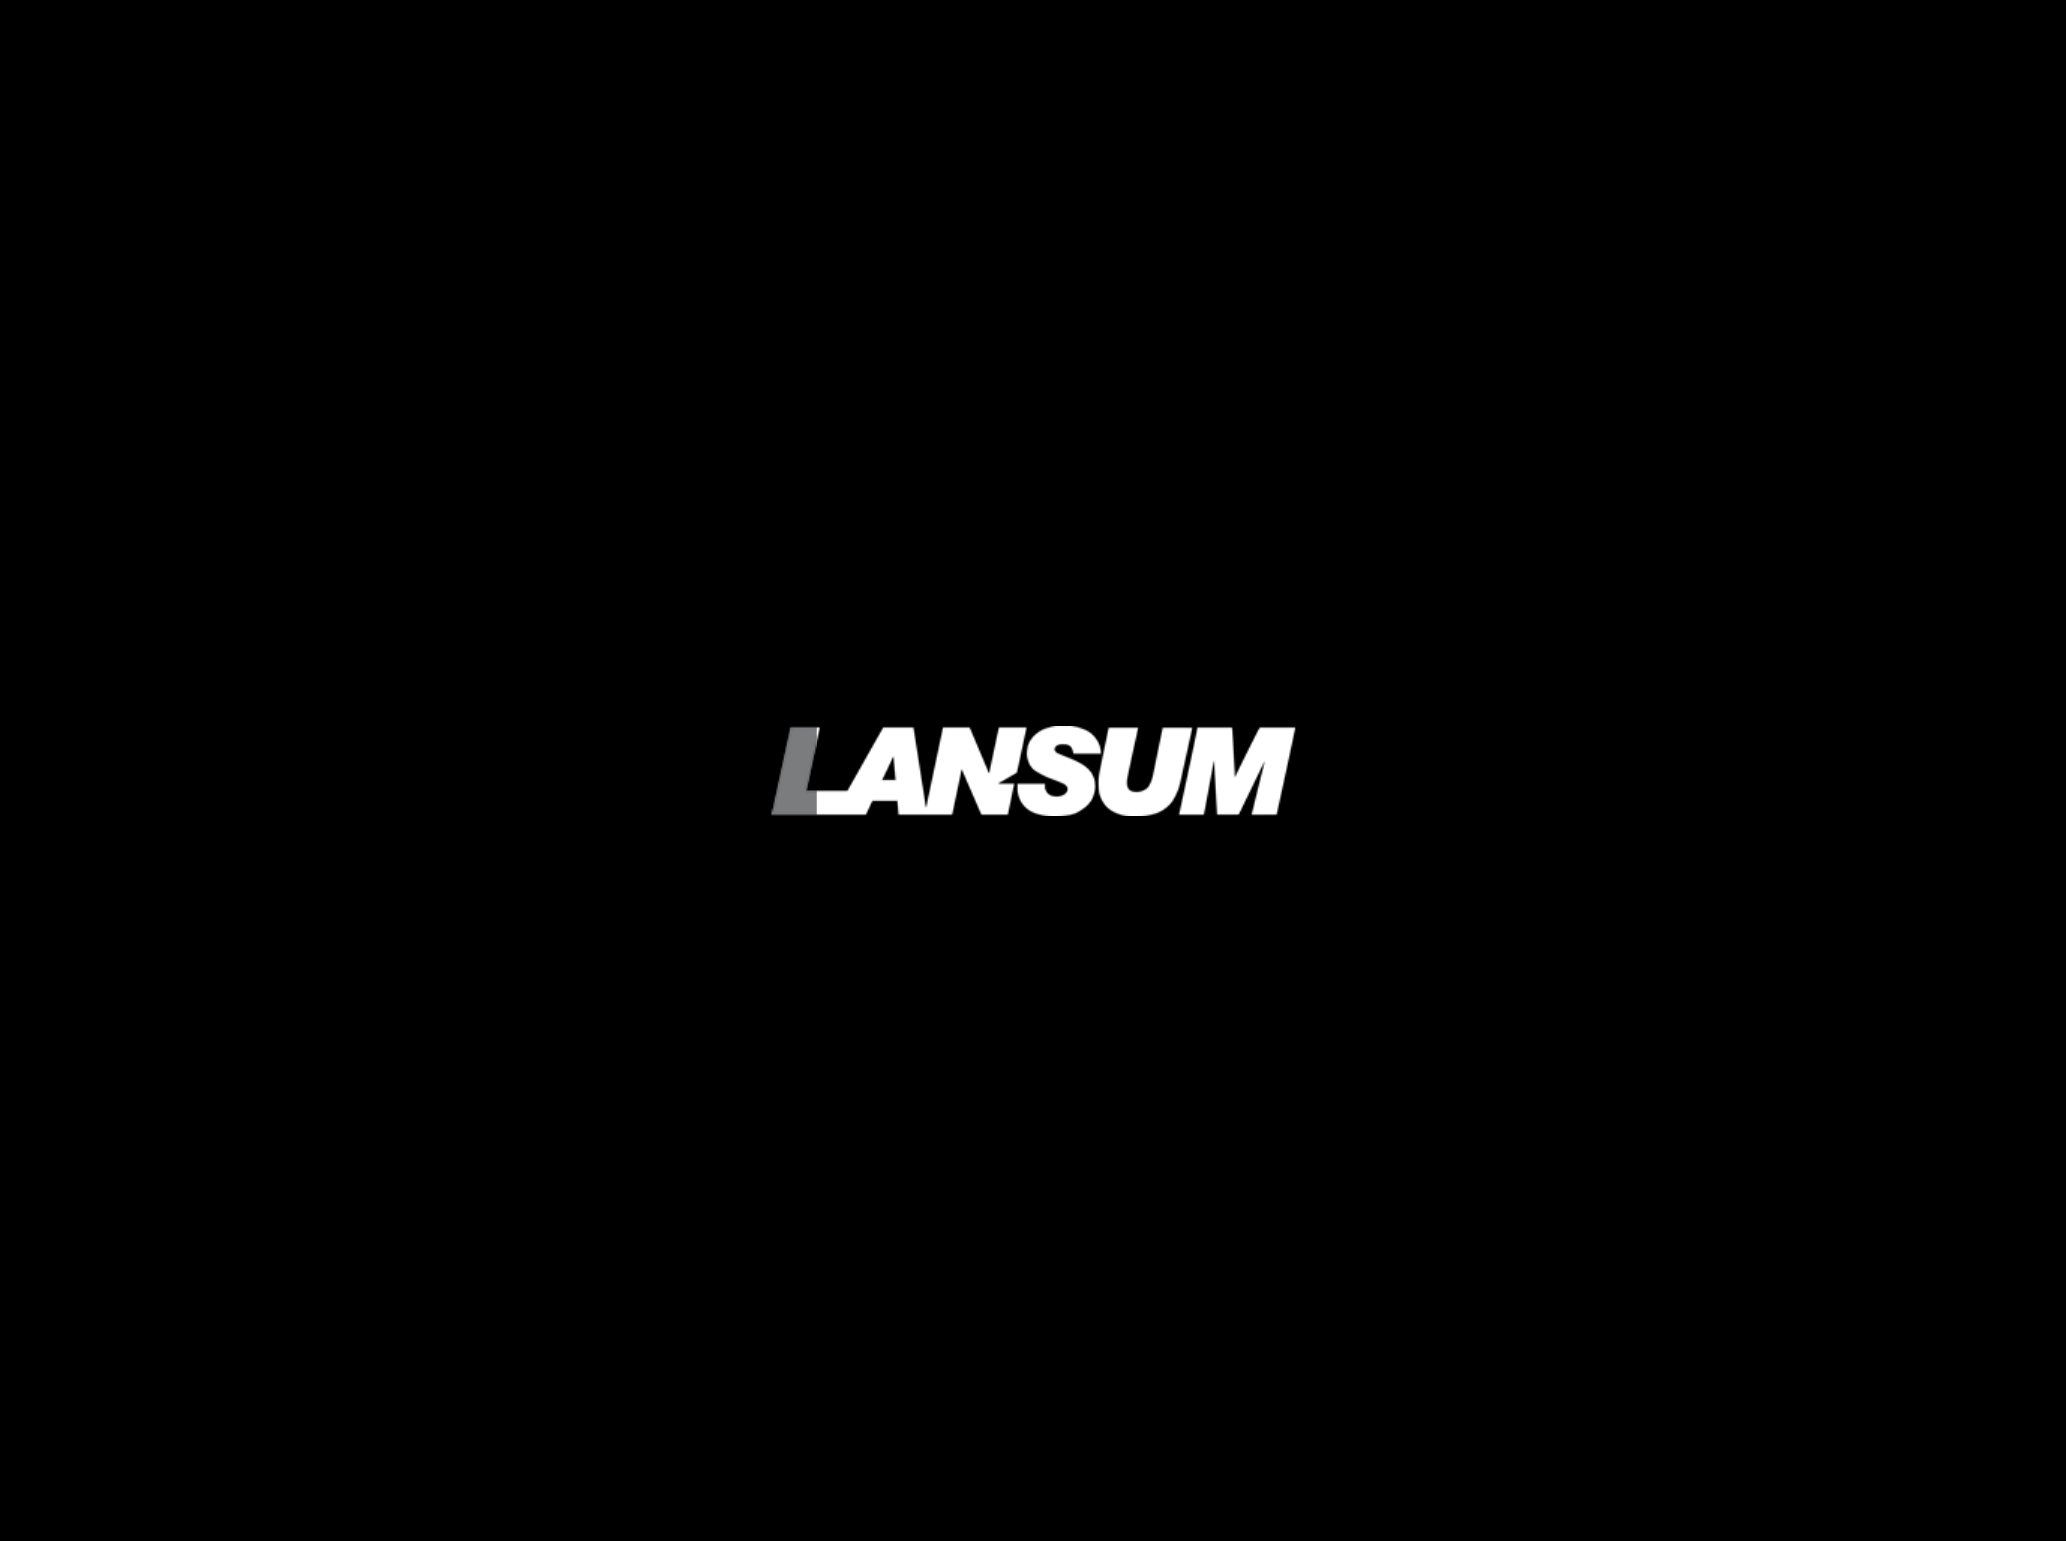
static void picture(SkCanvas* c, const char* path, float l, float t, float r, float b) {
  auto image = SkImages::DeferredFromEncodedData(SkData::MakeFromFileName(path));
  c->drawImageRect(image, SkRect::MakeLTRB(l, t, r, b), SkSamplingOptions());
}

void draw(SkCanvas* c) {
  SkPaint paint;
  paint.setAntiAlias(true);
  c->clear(0xff000000);
  picture(c, "img_01.png", 771, 726, 1296, 816);
  picture(c, "img_02.png", 771, 727, 817, 816);
}
